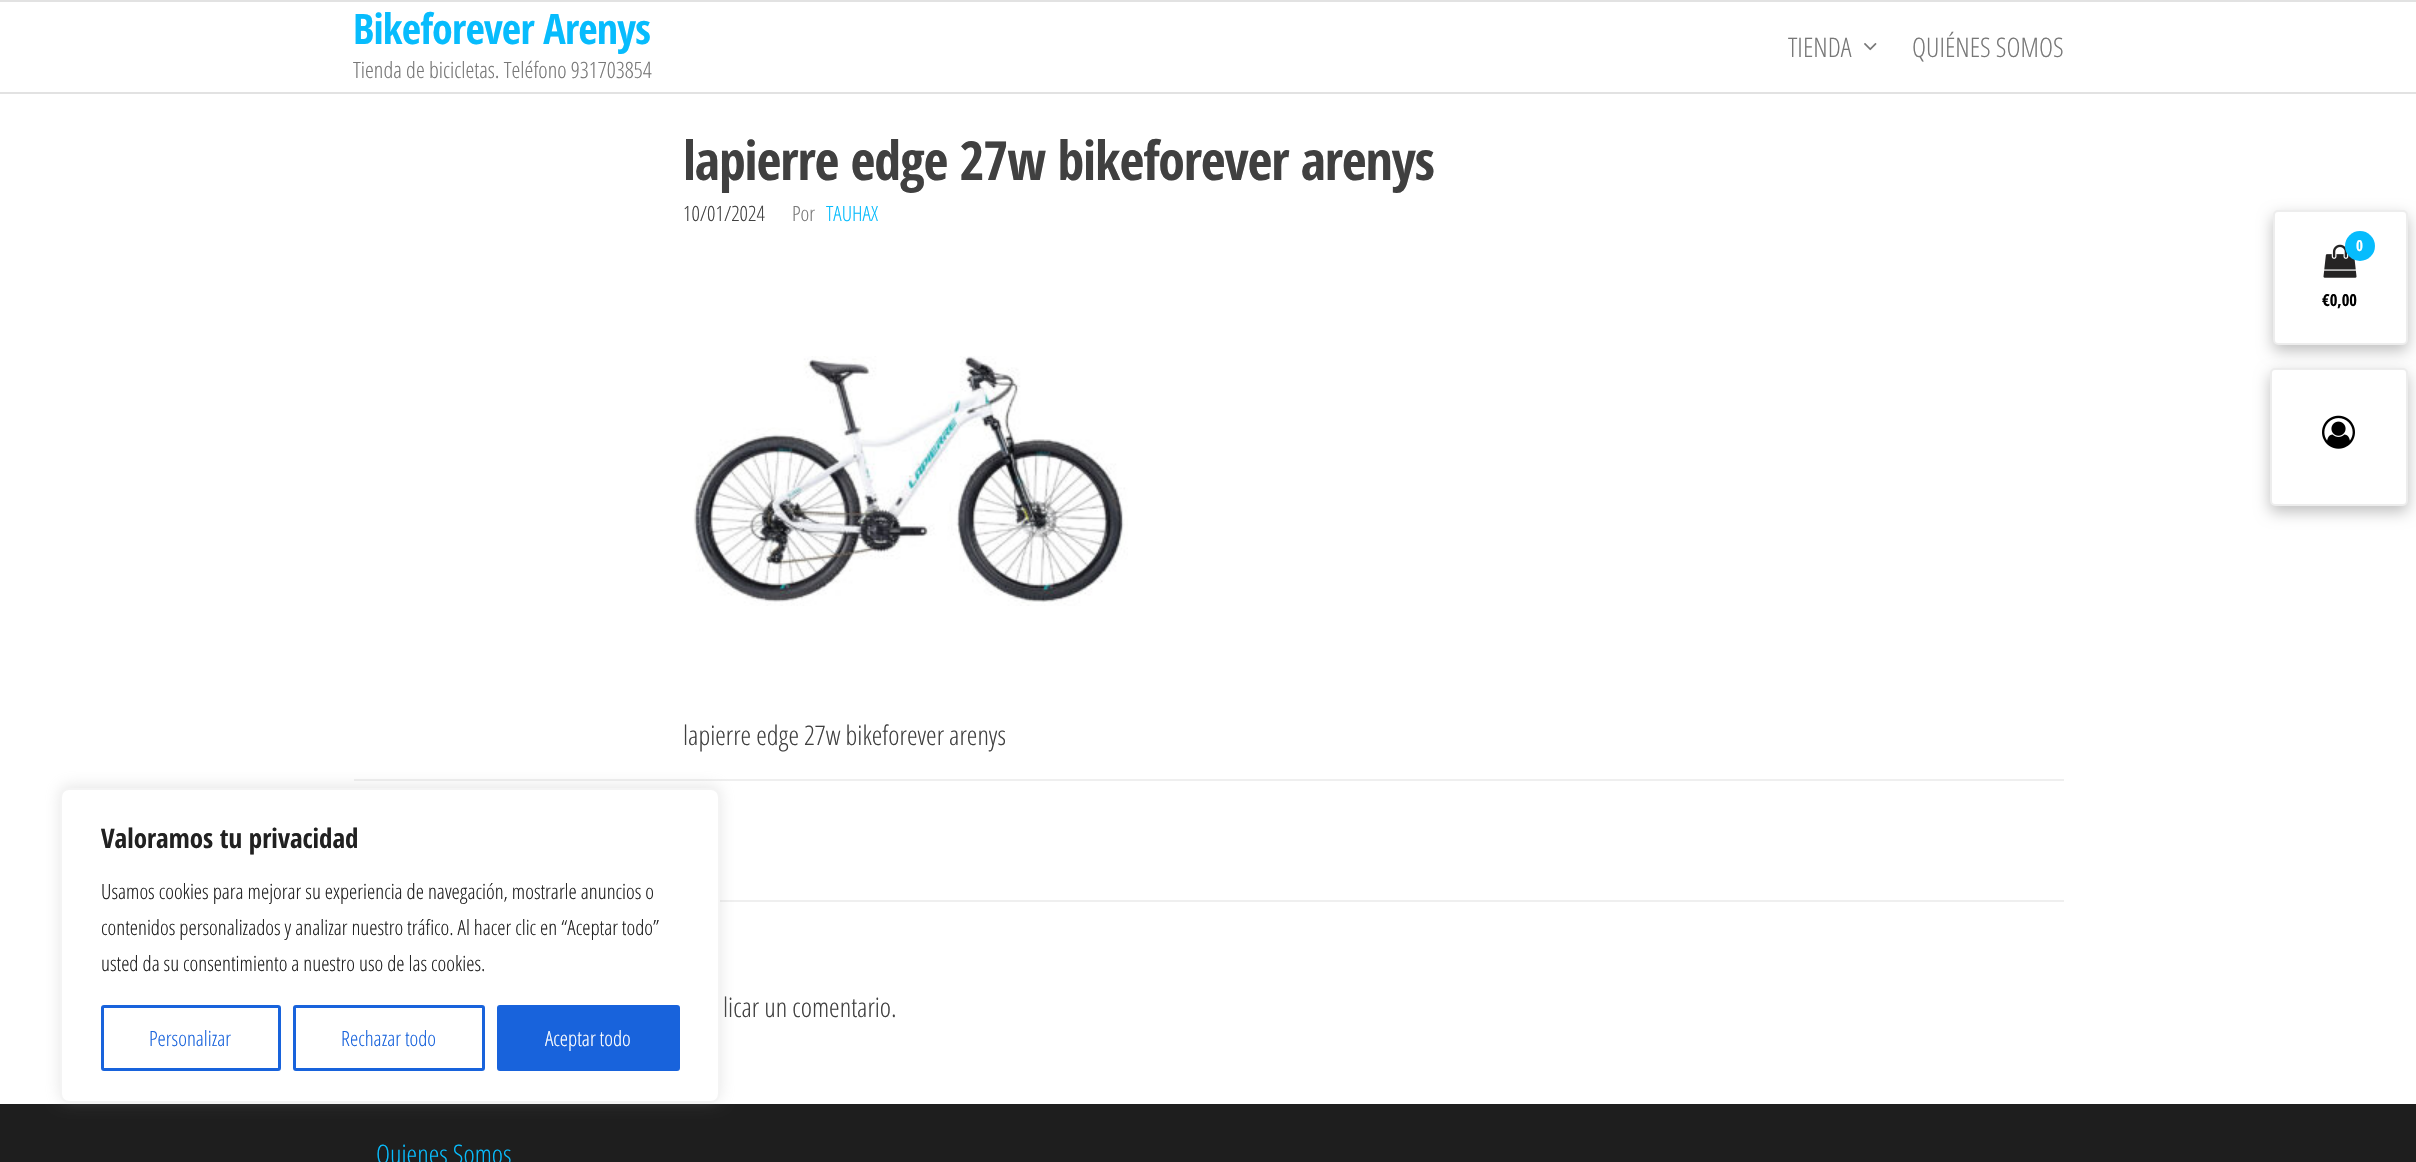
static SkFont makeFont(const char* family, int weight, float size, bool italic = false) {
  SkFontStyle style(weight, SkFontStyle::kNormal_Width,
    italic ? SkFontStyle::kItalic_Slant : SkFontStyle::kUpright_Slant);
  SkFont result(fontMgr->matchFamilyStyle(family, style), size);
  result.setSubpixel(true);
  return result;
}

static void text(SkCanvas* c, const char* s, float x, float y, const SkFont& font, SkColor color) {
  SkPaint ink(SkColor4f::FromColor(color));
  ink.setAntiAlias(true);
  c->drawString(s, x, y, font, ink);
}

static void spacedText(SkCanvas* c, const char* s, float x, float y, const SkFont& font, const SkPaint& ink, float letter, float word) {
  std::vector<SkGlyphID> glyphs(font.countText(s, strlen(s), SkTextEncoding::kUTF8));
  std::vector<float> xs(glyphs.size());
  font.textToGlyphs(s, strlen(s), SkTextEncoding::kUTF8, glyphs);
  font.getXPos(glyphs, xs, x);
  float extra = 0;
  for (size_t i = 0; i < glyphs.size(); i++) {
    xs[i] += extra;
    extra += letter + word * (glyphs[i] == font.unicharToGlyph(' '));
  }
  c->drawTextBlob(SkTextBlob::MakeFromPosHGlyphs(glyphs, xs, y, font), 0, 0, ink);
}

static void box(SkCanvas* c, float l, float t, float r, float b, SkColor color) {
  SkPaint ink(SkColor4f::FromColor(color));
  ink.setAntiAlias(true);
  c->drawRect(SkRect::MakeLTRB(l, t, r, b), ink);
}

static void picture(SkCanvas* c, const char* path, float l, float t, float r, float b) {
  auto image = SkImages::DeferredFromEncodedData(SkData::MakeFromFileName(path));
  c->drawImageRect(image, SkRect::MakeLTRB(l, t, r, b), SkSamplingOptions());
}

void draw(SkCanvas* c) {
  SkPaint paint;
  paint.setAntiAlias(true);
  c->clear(0xffffffff);
  box(c, 0, 0, 2416, 2, 0xffe2e2e2);
  box(c, 0, 92, 2416, 94, 0xffe2e2e2);
  SkFont face1 = makeFont("Open Sans Condensed", 700, 42);
  paint.setColor(0xff07bcfd);
  spacedText(c, "Bikeforever Arenys", 353, 44, face1, paint, -0.8f, 0);
  SkFont face2 = makeFont("Open Sans Condensed", 300, 22.5f);
  text(c, "Tienda de bicicletas. Teléfono 931703854", 353, 78, face2, 0xff777777);
  SkFont face3 = makeFont("Open Sans Condensed", 300, 27);
  text(c, "TIENDA", 1788, 57, face3, 0xff777777);
  picture(c, "img_01.png", 1864, 43, 1877, 51);
  text(c, "QUIÉNES SOMOS", 1912, 57, face3, 0xff777777);
  SkFont face4 = makeFont("Open Sans Condensed", 700, 54);
  paint.setColor(0xff404040);
  spacedText(c, "lapierre edge 27w bikeforever arenys", 683, 180, face4, paint, -1.1f, 0);
  SkFont face5 = makeFont("Open Sans Condensed", 300, 21);
  text(c, "10/01/2024", 683, 221, face5, 0xff404040);
  text(c, "Por", 792, 221, face5, 0xff777777);
  text(c, "TAUHAX", 826, 221, face5, 0xff07bcfd);
  picture(c, "img_02.png", 693, 356, 1128, 606);
  text(c, "lapierre edge 27w bikeforever arenys", 683, 745, face3, 0xff404040);
  box(c, 354, 779, 2064, 781, 0xffefefef);
  box(c, 720, 900, 2064, 902, 0xffefefef);
  text(c, "licar un comentario.", 723, 1017, face3, 0xff404040);
  box(c, 0, 1104, 2416, 1162, 0xff1e1e1e);
  text(c, "Quienes Somos", 376, 1164, face3, 0xff07bcfd);
  paint.setColor(0x40000000);
  paint.setMaskFilter(SkMaskFilter::MakeBlur(kNormal_SkBlurStyle, 7.5f));
  c->drawRoundRect(SkRect::MakeLTRB(2270, 374, 2408, 512), 5, 5, paint);
  paint.setMaskFilter(nullptr);
  paint.setColor(0xffffffff);
  c->drawRoundRect(SkRect::MakeLTRB(2271, 369, 2407, 505), 4, 4, paint);
  paint.setStyle(SkPaint::kStroke_Style);
  paint.setStrokeWidth(2);
  paint.setColor(0xffededed);
  c->drawRoundRect(SkRect::MakeLTRB(2271, 369, 2407, 505), 4, 4, paint);
  paint.setStyle(SkPaint::kFill_Style);
  paint.setColor(0x40000000);
  paint.setMaskFilter(SkMaskFilter::MakeBlur(kNormal_SkBlurStyle, 7.5f));
  c->drawRoundRect(SkRect::MakeLTRB(2273, 216, 2408, 351), 5, 5, paint);
  paint.setMaskFilter(nullptr);
  paint.setColor(0xffffffff);
  c->drawRoundRect(SkRect::MakeLTRB(2274, 211, 2407, 344), 4, 4, paint);
  paint.setStyle(SkPaint::kStroke_Style);
  paint.setColor(0xffededed);
  c->drawRoundRect(SkRect::MakeLTRB(2274, 211, 2407, 344), 4, 4, paint);
  picture(c, "img_03.png", 2323, 244, 2357, 278);
  paint.setStyle(SkPaint::kFill_Style);
  paint.setColor(0xff07bcfd);
  c->drawCircle(2360, 246, 15, paint);
  SkFont face6 = makeFont("Open Sans Condensed", 700, 15);
  text(c, "0", 2356, 251, face6, 0xffffffff);
  SkFont face7 = makeFont("Open Sans Condensed", 700, 16.5f);
  text(c, "€0,00", 2322, 306, face7, 0xff000000);
  picture(c, "img_04.png", 2322, 415, 2355, 449);
  paint.setColor(0x4dacabab);
  paint.setMaskFilter(SkMaskFilter::MakeBlur(kNormal_SkBlurStyle, 7.5f));
  c->drawRoundRect(SkRect::MakeLTRB(60, 786, 720, 1101), 9, 9, paint);
  paint.setMaskFilter(nullptr);
  paint.setColor(0xffffffff);
  c->drawRoundRect(SkRect::MakeLTRB(61, 789, 719, 1102), 8, 8, paint);
  paint.setStyle(SkPaint::kStroke_Style);
  paint.setColor(0xfff4f4f4);
  c->drawRoundRect(SkRect::MakeLTRB(61, 789, 719, 1102), 8, 8, paint);
  SkFont face8 = makeFont("Open Sans Condensed", 700, 27);
  text(c, "Valoramos tu privacidad", 101, 848, face8, 0xff212121);
  text(c, "Usamos cookies para mejorar su experiencia de navegación, mostrarle anuncios o", 101, 899, face5, 0xff212121);
  text(c, "contenidos personalizados y analizar nuestro tráfico. Al hacer clic en “Aceptar todo”", 101, 935, face5, 0xff212121);
  text(c, "usted da su consentimiento a nuestro uso de las cookies.", 101, 971, face5, 0xff212121);
  paint.setStrokeWidth(3);
  paint.setColor(0xff1863dc);
  c->drawRoundRect(SkRect::MakeLTRB(102.5f, 1006.5f, 279.5f, 1069.5f), 1.5f, 1.5f, paint);
  text(c, "Personalizar", 149, 1046, face5, 0xff1863dc);
  c->drawRoundRect(SkRect::MakeLTRB(294.5f, 1006.5f, 483.5f, 1069.5f), 1.5f, 1.5f, paint);
  text(c, "Rechazar todo", 341, 1046, face5, 0xff1863dc);
  paint.setStyle(SkPaint::kFill_Style);
  c->drawRoundRect(SkRect::MakeLTRB(498.5f, 1006.5f, 678.5f, 1069.5f), 1.5f, 1.5f, paint);
  paint.setStyle(SkPaint::kStroke_Style);
  c->drawRoundRect(SkRect::MakeLTRB(498.5f, 1006.5f, 678.5f, 1069.5f), 1.5f, 1.5f, paint);
  text(c, "Aceptar todo", 545, 1046, face5, 0xffffffff);
}
